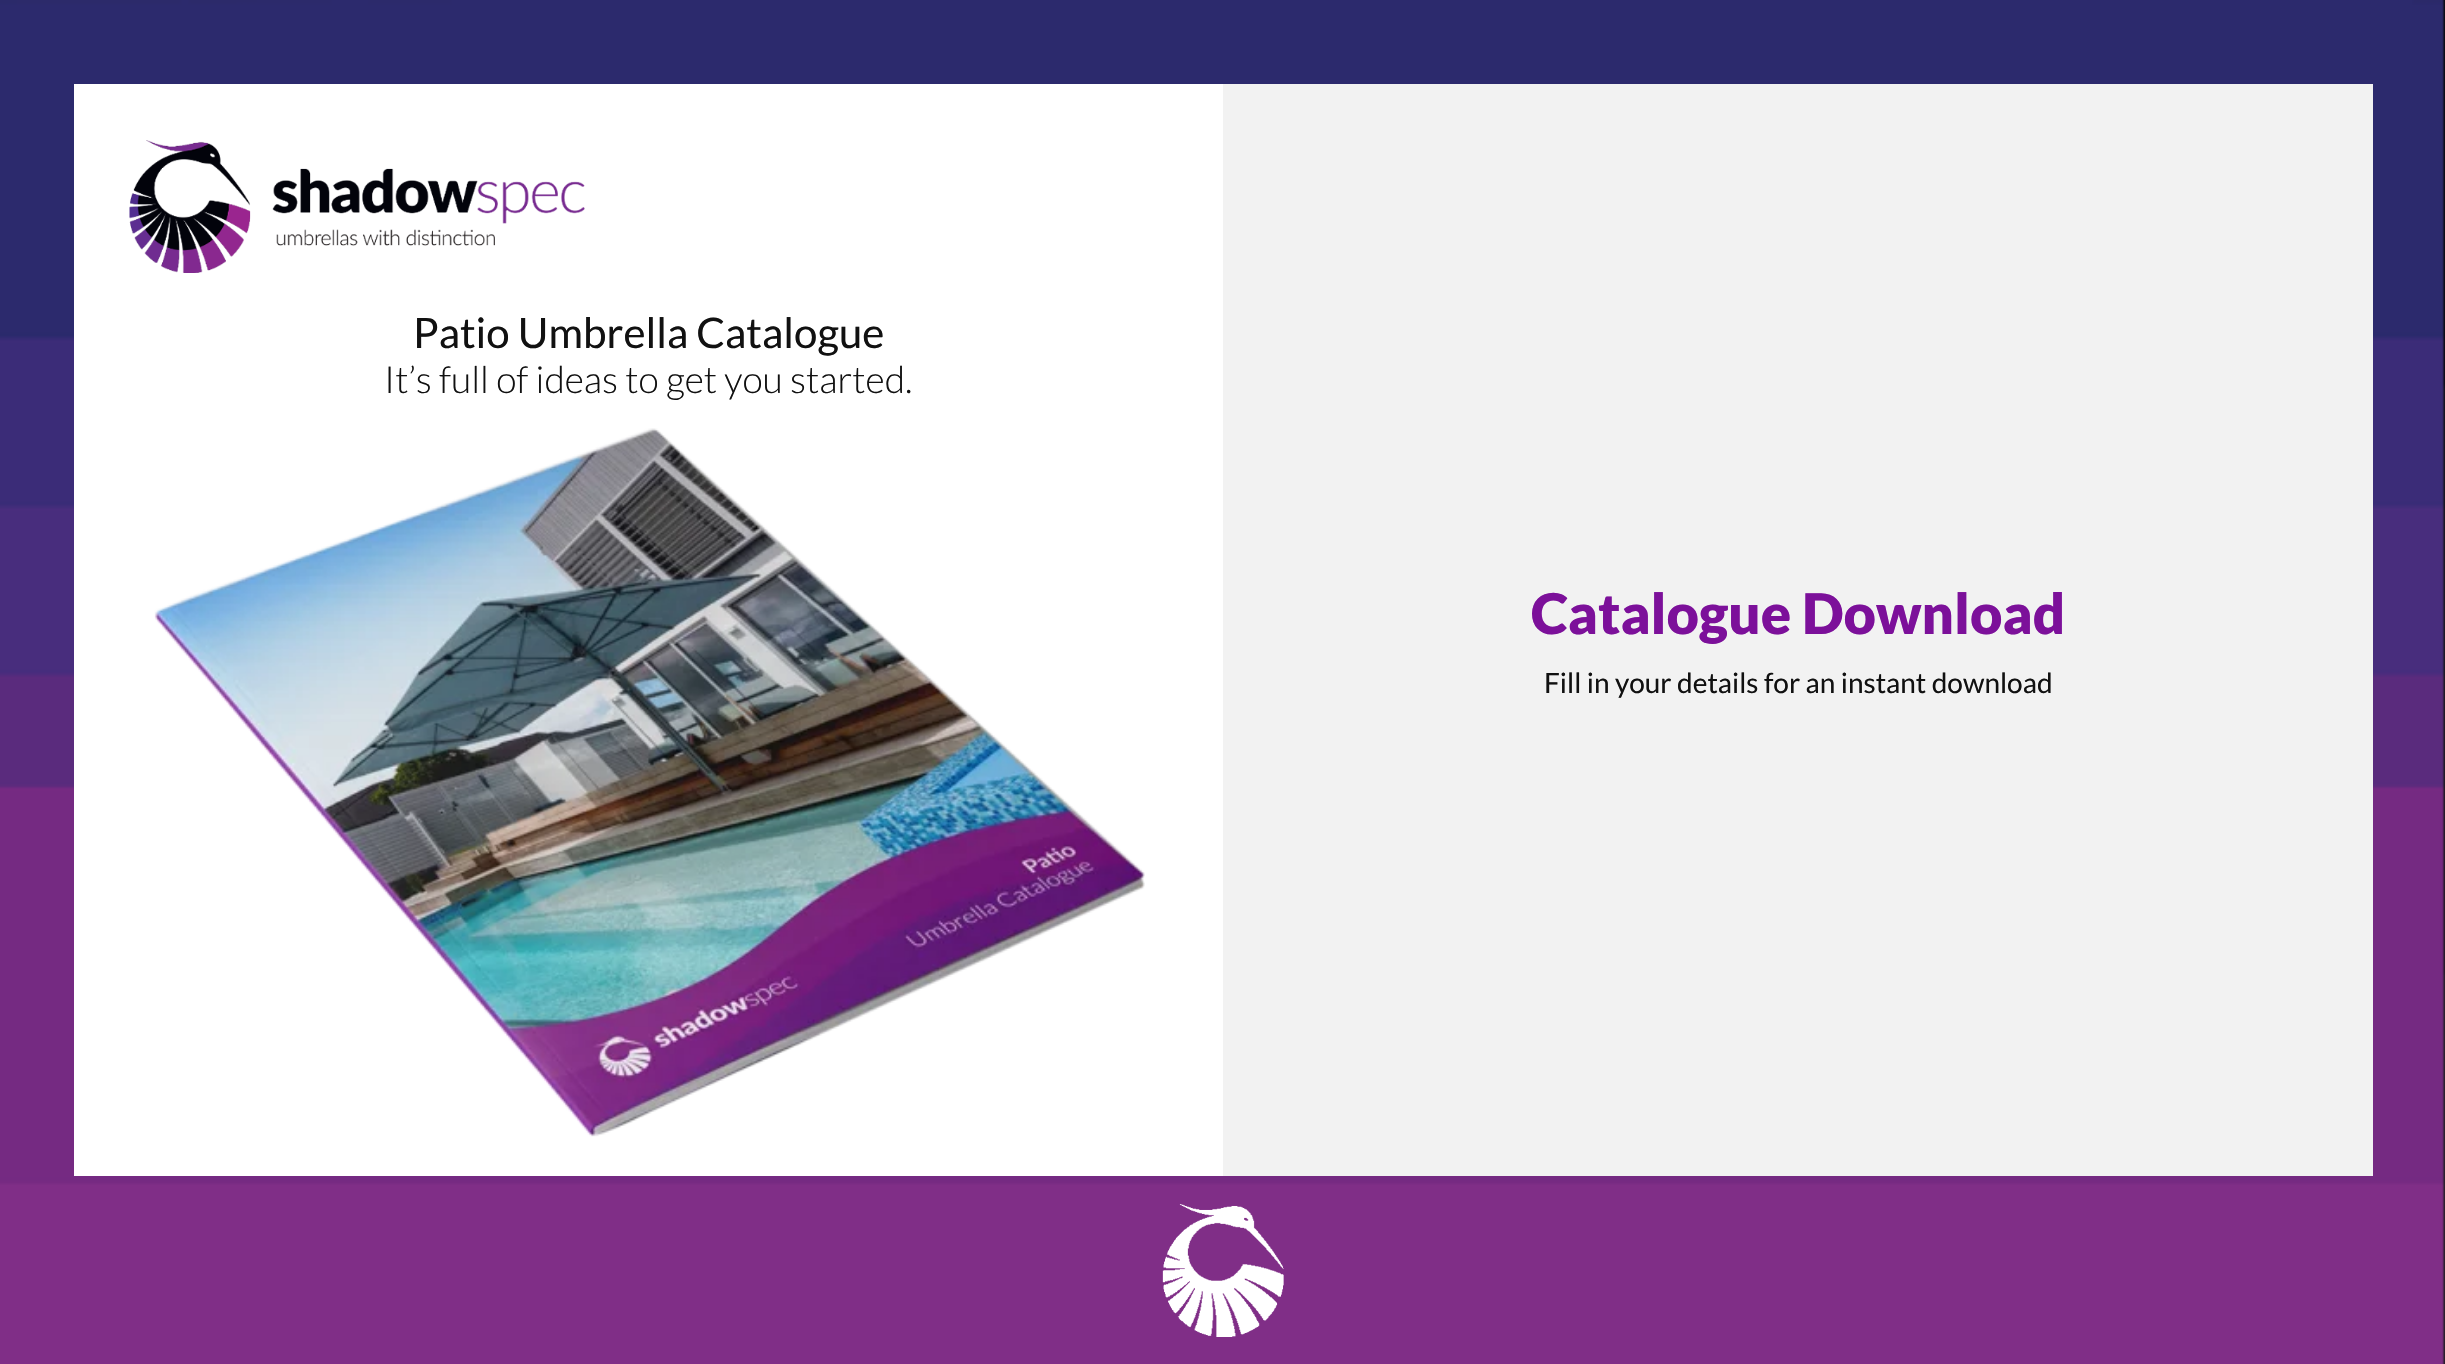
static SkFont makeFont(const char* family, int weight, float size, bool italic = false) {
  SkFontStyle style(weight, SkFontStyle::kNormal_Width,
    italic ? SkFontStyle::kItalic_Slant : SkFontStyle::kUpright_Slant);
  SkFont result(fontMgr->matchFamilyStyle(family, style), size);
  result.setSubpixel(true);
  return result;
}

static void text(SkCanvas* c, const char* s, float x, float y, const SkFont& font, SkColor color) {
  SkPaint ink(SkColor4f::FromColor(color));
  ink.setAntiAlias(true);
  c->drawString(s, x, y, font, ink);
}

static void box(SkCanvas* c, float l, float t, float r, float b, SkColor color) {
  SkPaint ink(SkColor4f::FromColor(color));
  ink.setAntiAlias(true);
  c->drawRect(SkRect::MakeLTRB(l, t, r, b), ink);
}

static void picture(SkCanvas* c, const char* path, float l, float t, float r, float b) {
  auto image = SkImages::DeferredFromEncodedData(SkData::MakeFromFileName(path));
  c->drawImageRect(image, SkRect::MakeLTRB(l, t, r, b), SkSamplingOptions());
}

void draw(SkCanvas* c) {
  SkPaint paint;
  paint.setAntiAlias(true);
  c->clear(0xffffffff);
  picture(c, "img_01.png", 0, 0, 2445, 1364);
  box(c, 1223, 84, 2373, 1176, 0xfff2f2f2);
  box(c, 74, 84, 1223, 1176, 0xffffffff);
  picture(c, "img_02.png", 129, 140, 585, 273);
  SkFont face1 = makeFont("Lato", 400, 42);
  text(c, "Patio Umbrella Catalogue", 413, 348, face1, 0xff111111);
  SkFont face2 = makeFont("Lato", 300, 37.3f);
  text(c, "It’s full of ideas to get you started.", 384, 393, face2, 0xff111111);
  picture(c, "img_03.png", 154, 428, 1145, 1137);
  SkFont face3 = makeFont("Lato", 900, 56);
  text(c, "Catalogue Download", 1531, 634, face3, 0xff7c109a);
  SkFont face4 = makeFont("Lato", 400, 28);
  text(c, "Fill in your details for an instant download", 1544, 693, face4, 0xff111111);
  picture(c, "img_04.png", 1162, 1204, 1284, 1337);
}
